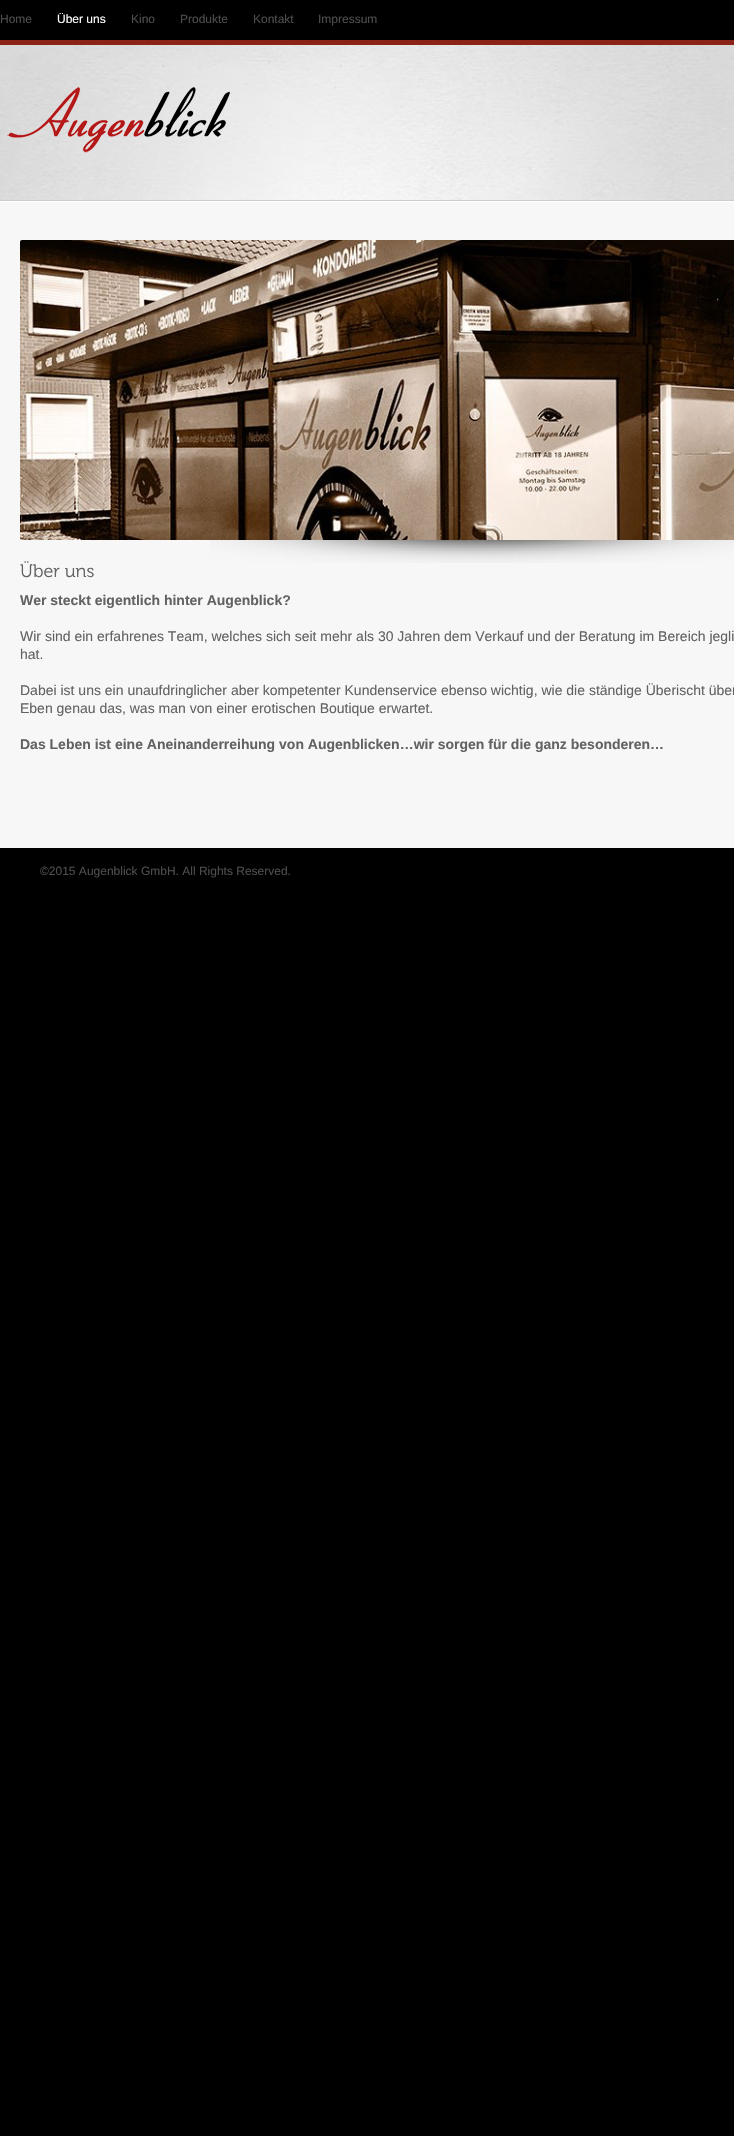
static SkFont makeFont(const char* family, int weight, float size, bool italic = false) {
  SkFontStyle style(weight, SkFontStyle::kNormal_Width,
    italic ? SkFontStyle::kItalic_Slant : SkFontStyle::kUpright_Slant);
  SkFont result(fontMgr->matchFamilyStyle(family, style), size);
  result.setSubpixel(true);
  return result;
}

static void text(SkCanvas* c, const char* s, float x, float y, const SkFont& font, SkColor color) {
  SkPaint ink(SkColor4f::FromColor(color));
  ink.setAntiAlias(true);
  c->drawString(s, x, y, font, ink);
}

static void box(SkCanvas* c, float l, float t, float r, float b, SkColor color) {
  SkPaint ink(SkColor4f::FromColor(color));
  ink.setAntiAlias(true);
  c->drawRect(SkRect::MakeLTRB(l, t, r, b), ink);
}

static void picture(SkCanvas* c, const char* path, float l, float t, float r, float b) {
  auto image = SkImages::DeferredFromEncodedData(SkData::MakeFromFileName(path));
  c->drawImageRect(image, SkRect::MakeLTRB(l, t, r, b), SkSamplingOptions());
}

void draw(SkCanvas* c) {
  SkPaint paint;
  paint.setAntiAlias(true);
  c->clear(0xff000000);
  box(c, 0, 40, 734, 45, 0xff8b2318);
  SkFont face1 = makeFont("Liberation Sans", 400, 12);
  text(c, "Home", 0, 23, face1, 0xff4e4e4e);
  text(c, "Über uns", 57, 23, face1, 0xffffffff);
  text(c, "Kino", 131, 23, face1, 0xff4e4e4e);
  text(c, "Produkte", 180, 23, face1, 0xff4e4e4e);
  text(c, "Kontakt", 253, 23, face1, 0xff4e4e4e);
  text(c, "Impressum", 318, 23, face1, 0xff4e4e4e);
  picture(c, "img_01.png", 0, 45, 734, 200);
  box(c, 0, 200, 734, 201, 0xffcccccc);
  picture(c, "img_02.png", 7, 87, 231, 153);
  box(c, 0, 201, 734, 202, 0xffffffff);
  box(c, 0, 202, 734, 848, 0xfff7f7f7);
  picture(c, "img_03.png", 20, 240, 734, 540);
  picture(c, "img_04.png", 210, 540, 734, 563);
  SkFont face2 = makeFont("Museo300", 300, 18);
  text(c, "Über uns", 20, 577, face2, 0xff626262);
  SkFont face3 = makeFont("Liberation Sans", 700, 14);
  text(c, "Wer steckt eigentlich hinter Augenblick?", 20, 605, face3, 0xff626262);
  SkFont face4 = makeFont("Liberation Sans", 400, 14);
  text(c, "Wir sind ein erfahrenes Team, welches sich seit mehr als 30 Jahren dem Verkauf und der Beratung im Bereich jegli", 20, 641, face4, 0xff626262);
  text(c, "hat.", 20, 659, face4, 0xff626262);
  text(c, "Dabei ist uns ein unaufdringlicher aber kompetenter Kundenservice ebenso wichtig, wie die ständige Überischt über", 20, 695, face4, 0xff626262);
  text(c, "Eben genau das, was man von einer erotischen Boutique erwartet.", 20, 713, face4, 0xff626262);
  text(c, "Das Leben ist eine Aneinanderreihung von Augenblicken…wir sorgen für die ganz besonderen…", 20, 749, face3, 0xff626262);
  text(c, "©2015 Augenblick GmbH. All Rights Reserved.", 40, 875, face1, 0xff4e4e4e);
}
